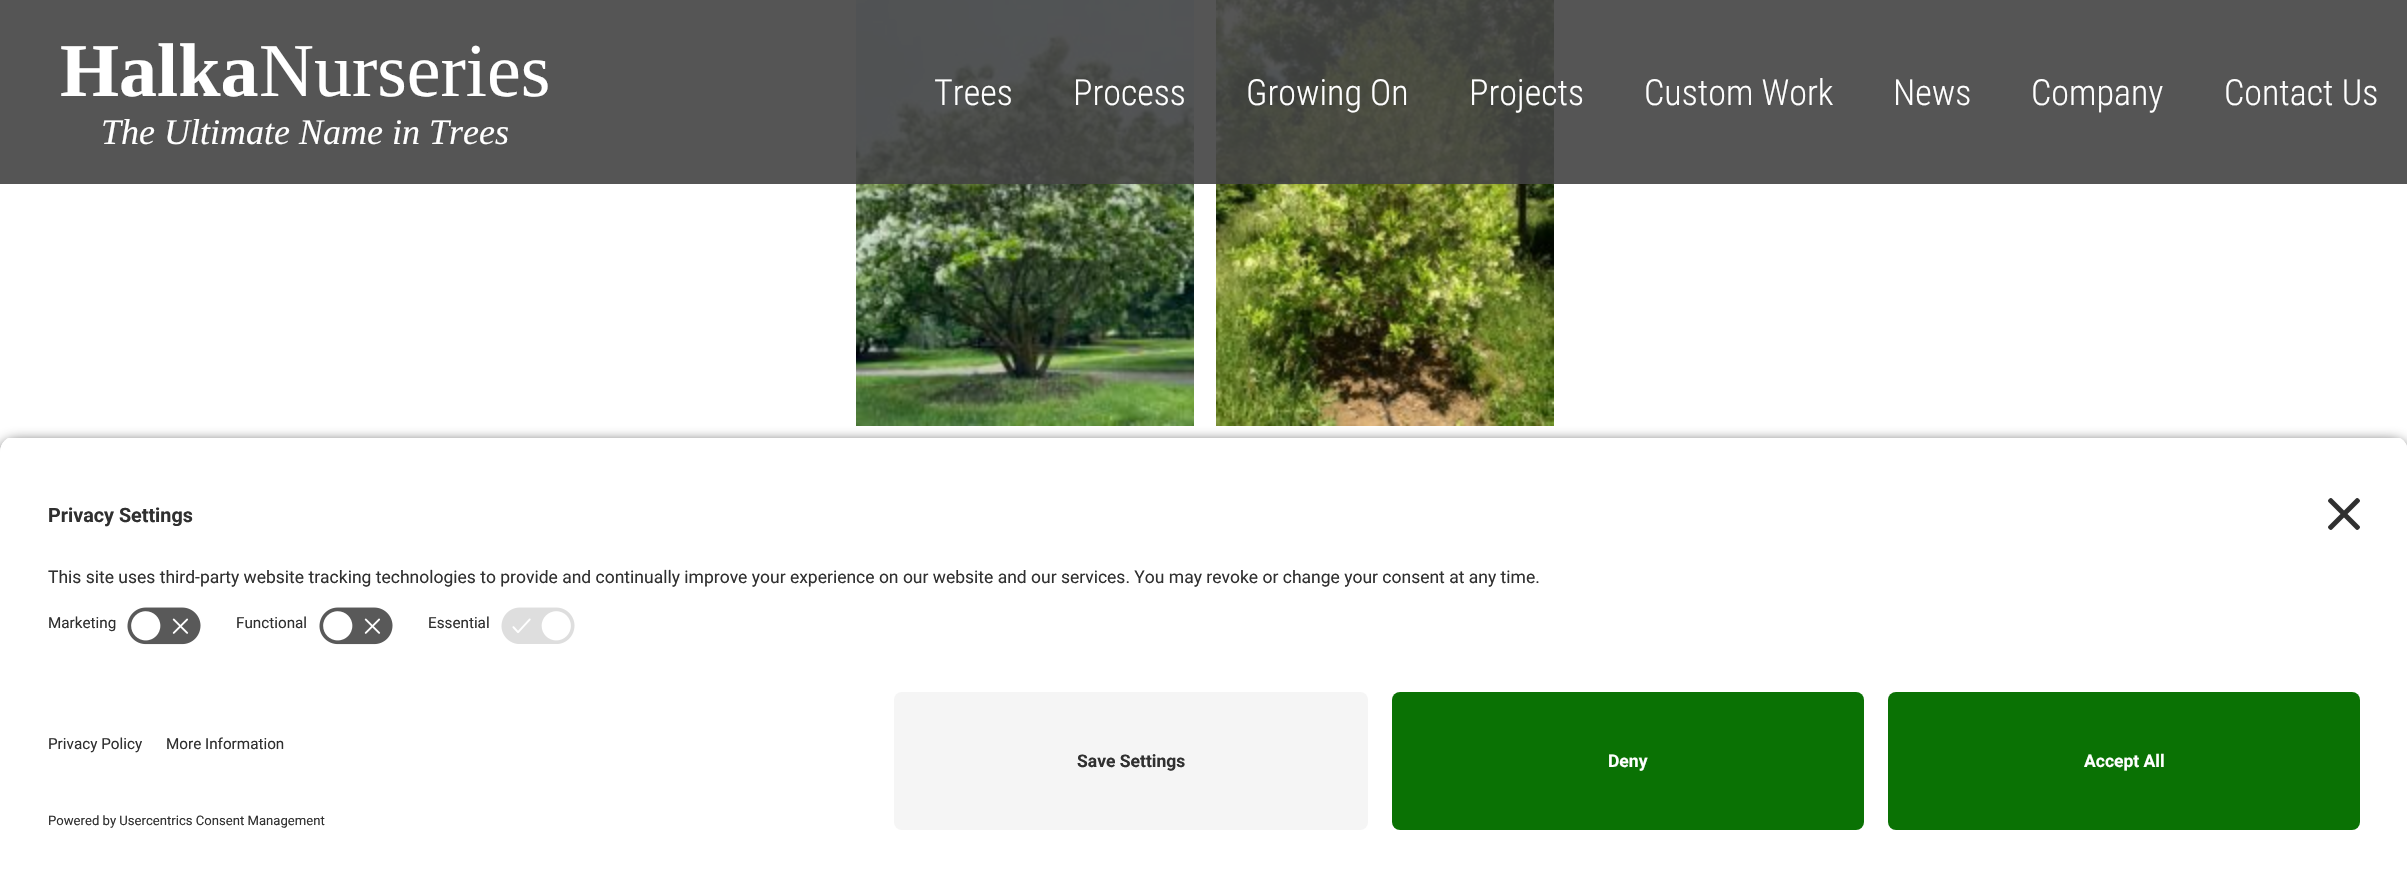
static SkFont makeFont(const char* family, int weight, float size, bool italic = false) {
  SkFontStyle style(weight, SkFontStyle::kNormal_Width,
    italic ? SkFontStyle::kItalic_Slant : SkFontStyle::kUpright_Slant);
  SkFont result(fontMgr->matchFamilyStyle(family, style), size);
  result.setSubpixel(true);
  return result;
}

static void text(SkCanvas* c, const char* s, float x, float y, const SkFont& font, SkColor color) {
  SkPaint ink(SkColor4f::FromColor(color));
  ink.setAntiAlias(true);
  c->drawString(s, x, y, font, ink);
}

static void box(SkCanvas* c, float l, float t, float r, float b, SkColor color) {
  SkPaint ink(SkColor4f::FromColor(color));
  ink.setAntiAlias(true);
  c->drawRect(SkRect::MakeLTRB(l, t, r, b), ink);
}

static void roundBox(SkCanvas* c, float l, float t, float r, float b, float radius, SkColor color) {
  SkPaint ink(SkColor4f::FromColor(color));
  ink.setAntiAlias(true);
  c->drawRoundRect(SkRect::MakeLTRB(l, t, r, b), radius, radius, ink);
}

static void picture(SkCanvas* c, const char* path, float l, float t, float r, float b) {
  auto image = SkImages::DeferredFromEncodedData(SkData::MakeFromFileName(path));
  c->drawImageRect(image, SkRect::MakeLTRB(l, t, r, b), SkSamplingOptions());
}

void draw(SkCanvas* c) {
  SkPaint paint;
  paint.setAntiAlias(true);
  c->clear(0xffffffff);
  picture(c, "img_01.png", 856, 0, 1194, 426);
  picture(c, "img_02.png", 1216, 0, 1554, 426);
  box(c, 0, 0, 2407, 184, 0xe6424242);
  SkFont face1 = makeFont("Liberation Serif", 700, 76);
  text(c, "Halka", 60, 96, face1, 0xffffffff);
  SkFont face2 = makeFont("Liberation Serif", 400, 76);
  text(c, "Nurseries", 259, 96, face2, 0xffffffff);
  SkFont face3 = makeFont("Liberation Serif", 400, 36, true);
  text(c, "The Ultimate Name in Trees", 101, 144, face3, 0xffffffff);
  SkFont face4 = makeFont("Roboto Condensed", 300, 36);
  text(c, "Trees", 934, 105, face4, 0xffffffff);
  text(c, "Process", 1073, 105, face4, 0xffffffff);
  text(c, "Growing On", 1246, 105, face4, 0xffffffff);
  text(c, "Projects", 1469, 105, face4, 0xffffffff);
  text(c, "Custom Work", 1644, 105, face4, 0xffffffff);
  text(c, "News", 1893, 105, face4, 0xffffffff);
  text(c, "Company", 2031, 105, face4, 0xffffffff);
  text(c, "Contact Us", 2224, 105, face4, 0xffffffff);
  paint.setColor(0xcc000000);
  paint.setMaskFilter(SkMaskFilter::MakeBlur(kNormal_SkBlurStyle, 7));
  c->drawRoundRect(SkRect::MakeLTRB(0, 442, 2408, 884), 16, 16, paint);
  paint.setMaskFilter(nullptr);
  c->save();
  c->clipPath(SkPathBuilder().moveTo(16, 436).lineTo(2392, 436).cubicTo(2401, 436, 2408, 443, 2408, 452).lineTo(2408, 676).lineTo(0, 676).lineTo(0, 452).cubicTo(0, 443, 7, 436, 16, 436).close().detach(), true);
  box(c, 0, 438, 2407, 676, 0xffffffff);
  box(c, 0, 438, 2407, 596, 0xffffffff);
  c->restore();
  SkFont face5 = makeFont("Roboto", 700, 19.75f);
  text(c, "Privacy Settings", 48, 522, face5, 0xff303030);
  picture(c, "img_03.png", 2328, 498, 2360, 530);
  SkFont face6 = makeFont("Roboto", 400, 17.5f);
  text(c, "This site uses third-party website tracking technologies to provide and continually improve your experience on our website and our services. You may revoke or change your consent at any time.", 48, 583, face6, 0xff303030);
  SkFont face7 = makeFont("Roboto", 400, 15.25f);
  text(c, "Marketing", 48, 628, face7, 0xff303030);
  picture(c, "img_04.png", 127, 607, 201, 645);
  text(c, "Functional", 236, 628, face7, 0xff303030);
  picture(c, "img_04.png", 319, 607, 393, 645);
  text(c, "Essential", 428, 628, face7, 0xff303030);
  picture(c, "img_05.png", 501, 607, 575, 644);
  box(c, 0, 676, 2407, 878, 0xffffffff);
  text(c, "Privacy Policy", 48, 749, face7, 0xff303030);
  text(c, "More Information", 166, 749, face7, 0xff303030);
  SkFont face8 = makeFont("Roboto", 400, 13.1f);
  text(c, "Powered by Usercentrics Consent Management", 48, 825, face8, 0xff303030);
  roundBox(c, 894, 692, 1368, 830, 8, 0xfff5f5f5);
  SkFont face9 = makeFont("Roboto", 700, 17.5f);
  text(c, "Save Settings", 1077, 767, face9, 0xff303030);
  roundBox(c, 1392, 692, 1864, 830, 8, 0xff0a7204);
  text(c, "Deny", 1608, 767, face9, 0xffffffff);
  roundBox(c, 1888, 692, 2360, 830, 8, 0xff0a7204);
  text(c, "Accept All", 2084, 767, face9, 0xffffffff);
}
